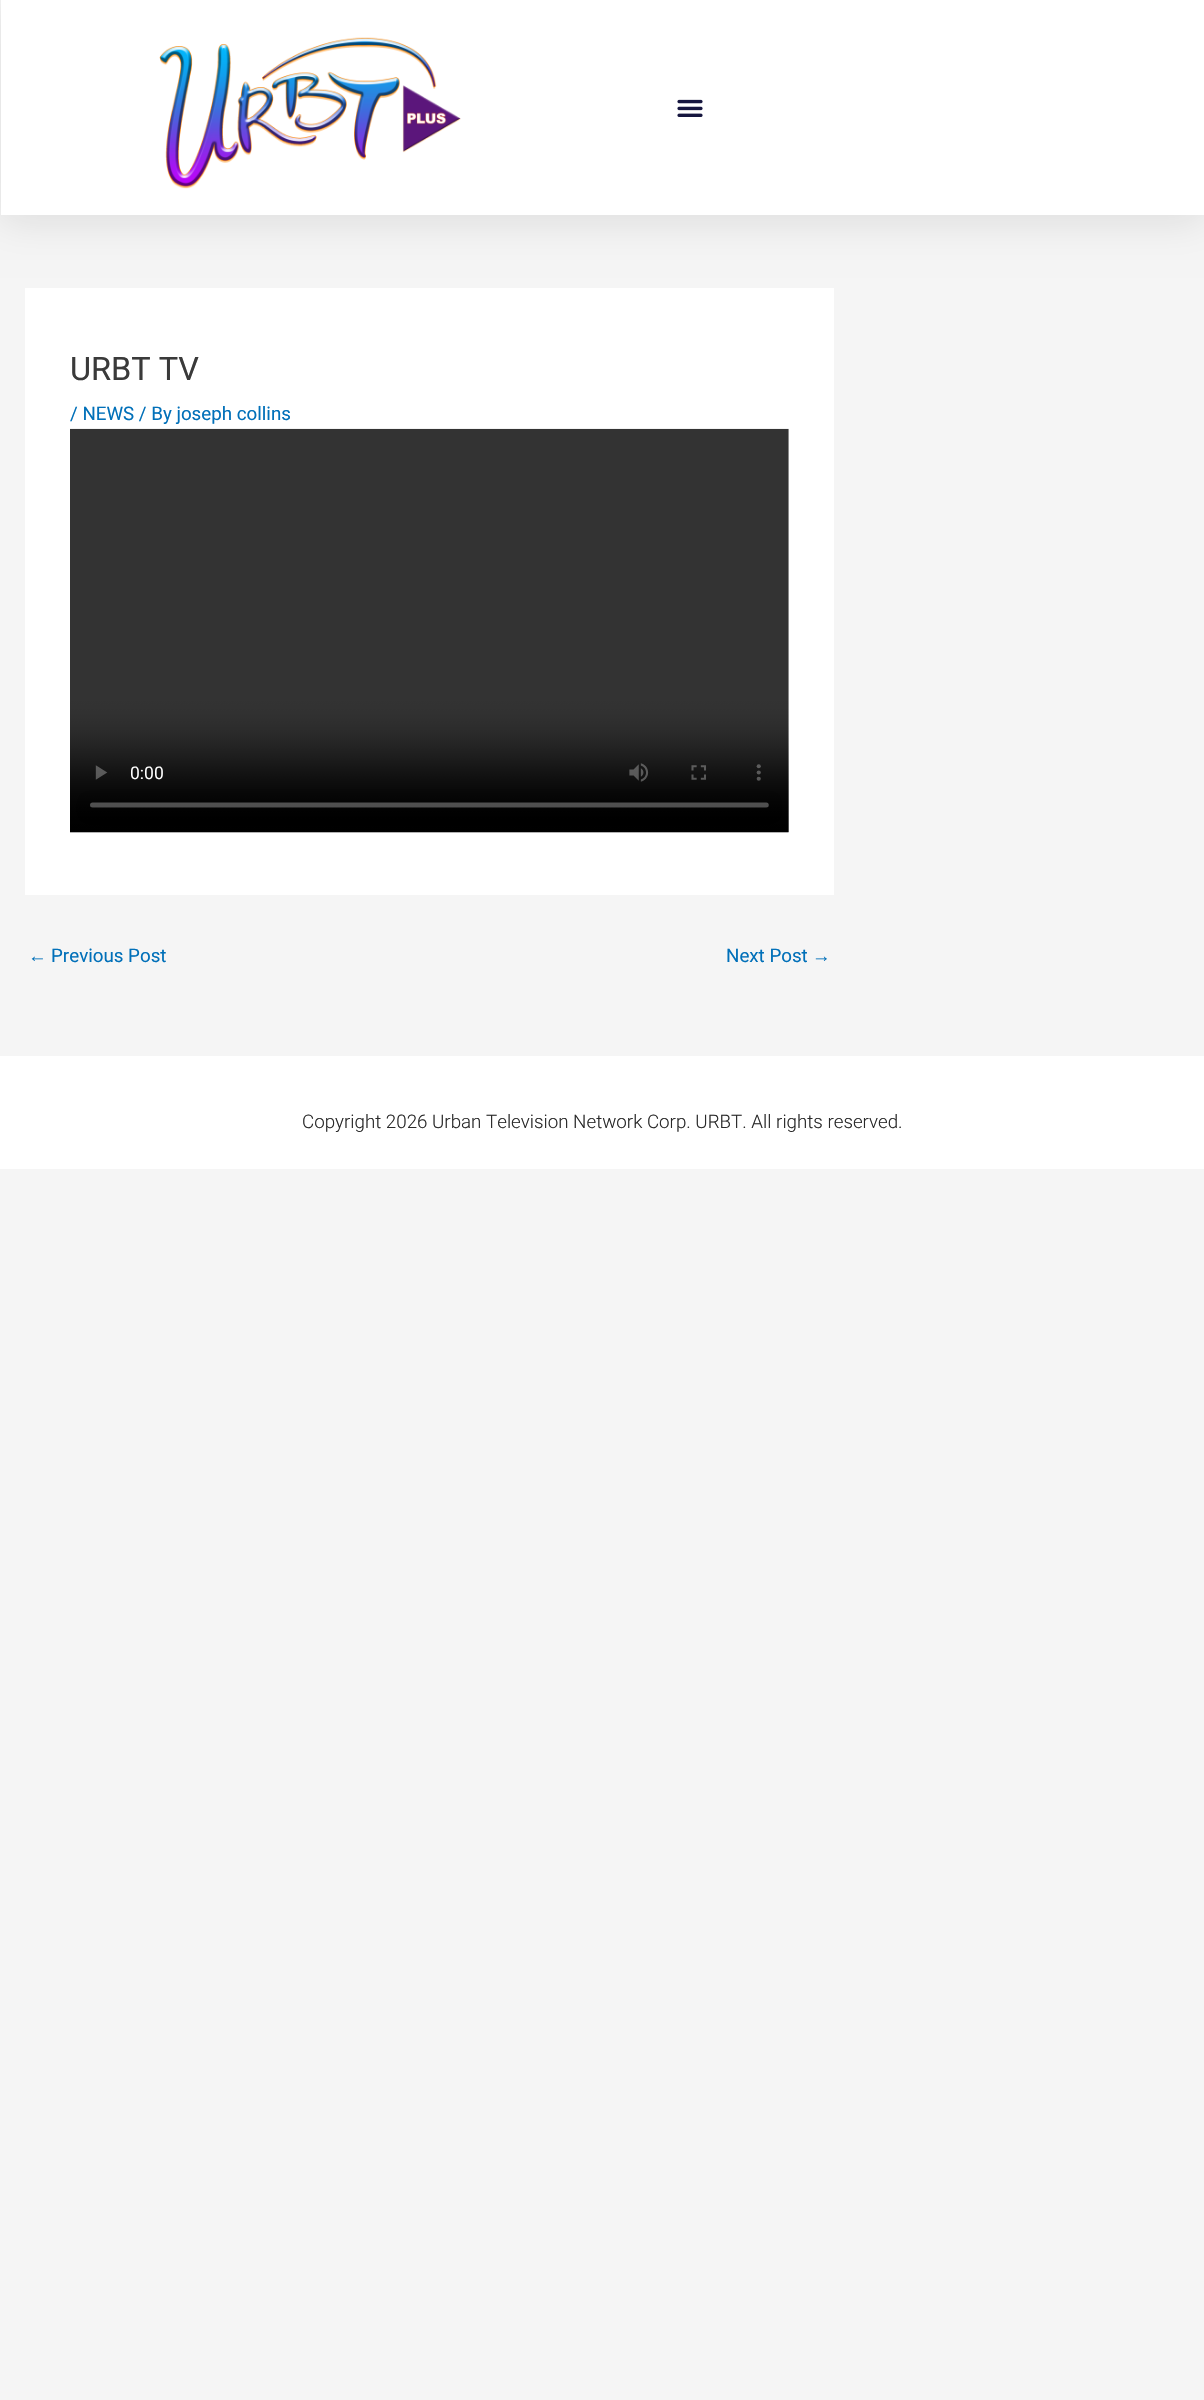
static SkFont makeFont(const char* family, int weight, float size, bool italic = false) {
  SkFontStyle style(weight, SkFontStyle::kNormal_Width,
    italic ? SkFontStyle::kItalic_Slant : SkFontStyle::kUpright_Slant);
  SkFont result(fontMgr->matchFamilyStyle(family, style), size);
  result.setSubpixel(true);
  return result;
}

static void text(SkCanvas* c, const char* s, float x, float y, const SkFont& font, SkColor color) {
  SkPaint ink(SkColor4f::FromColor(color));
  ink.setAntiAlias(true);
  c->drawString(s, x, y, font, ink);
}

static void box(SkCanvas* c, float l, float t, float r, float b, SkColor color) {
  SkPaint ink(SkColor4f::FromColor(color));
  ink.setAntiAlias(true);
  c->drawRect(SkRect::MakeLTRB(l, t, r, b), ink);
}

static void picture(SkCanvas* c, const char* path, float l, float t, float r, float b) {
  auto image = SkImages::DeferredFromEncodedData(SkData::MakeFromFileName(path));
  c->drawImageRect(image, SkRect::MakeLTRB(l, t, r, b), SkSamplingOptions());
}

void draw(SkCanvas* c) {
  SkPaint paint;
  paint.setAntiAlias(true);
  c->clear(0xfff5f5f5);
  paint.setColor(0x1a000000);
  paint.setMaskFilter(SkMaskFilter::MakeBlur(kNormal_SkBlurStyle, 19));
  c->drawRect(SkRect::MakeLTRB(0, 6, 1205, 221), paint);
  paint.setMaskFilter(nullptr);
  box(c, 1, 0, 1204, 215, 0xffffffff);
  picture(c, "img_01.png", 159, 37, 461, 189);
  picture(c, "img_02.png", 677, 99, 703, 117);
  box(c, 25, 288, 834, 895, 0xffffffff);
  SkFont face1 = makeFont("Roboto", 400, 32.5f);
  text(c, "URBT TV", 70, 380, face1, 0xff3a3a3a);
  SkFont face2 = makeFont("Roboto", 400, 18.75f);
  text(c, "/ NEWS / By joseph collins", 70, 420, face2, 0xff0170b9);
  picture(c, "img_03.png", 70, 428, 789, 833);
  SkFont face3 = makeFont("Liberation Sans", 400, 18.75f);
  text(c, "←", 28, 962, face3, 0xff0170b9);
  text(c, "Previous Post", 51, 962, face2, 0xff0170b9);
  text(c, "Next Post", 726, 962, face2, 0xff0170b9);
  text(c, "→", 812, 962, face3, 0xff0170b9);
  box(c, 0, 1056, 1204, 1169, 0xffffffff);
  SkFont face4 = makeFont("Roboto", 300, 18.75f);
  text(c, "Copyright 2026 Urban Television Network Corp. URBT. All rights reserved.", 302, 1128, face4, 0xff292929);
}
